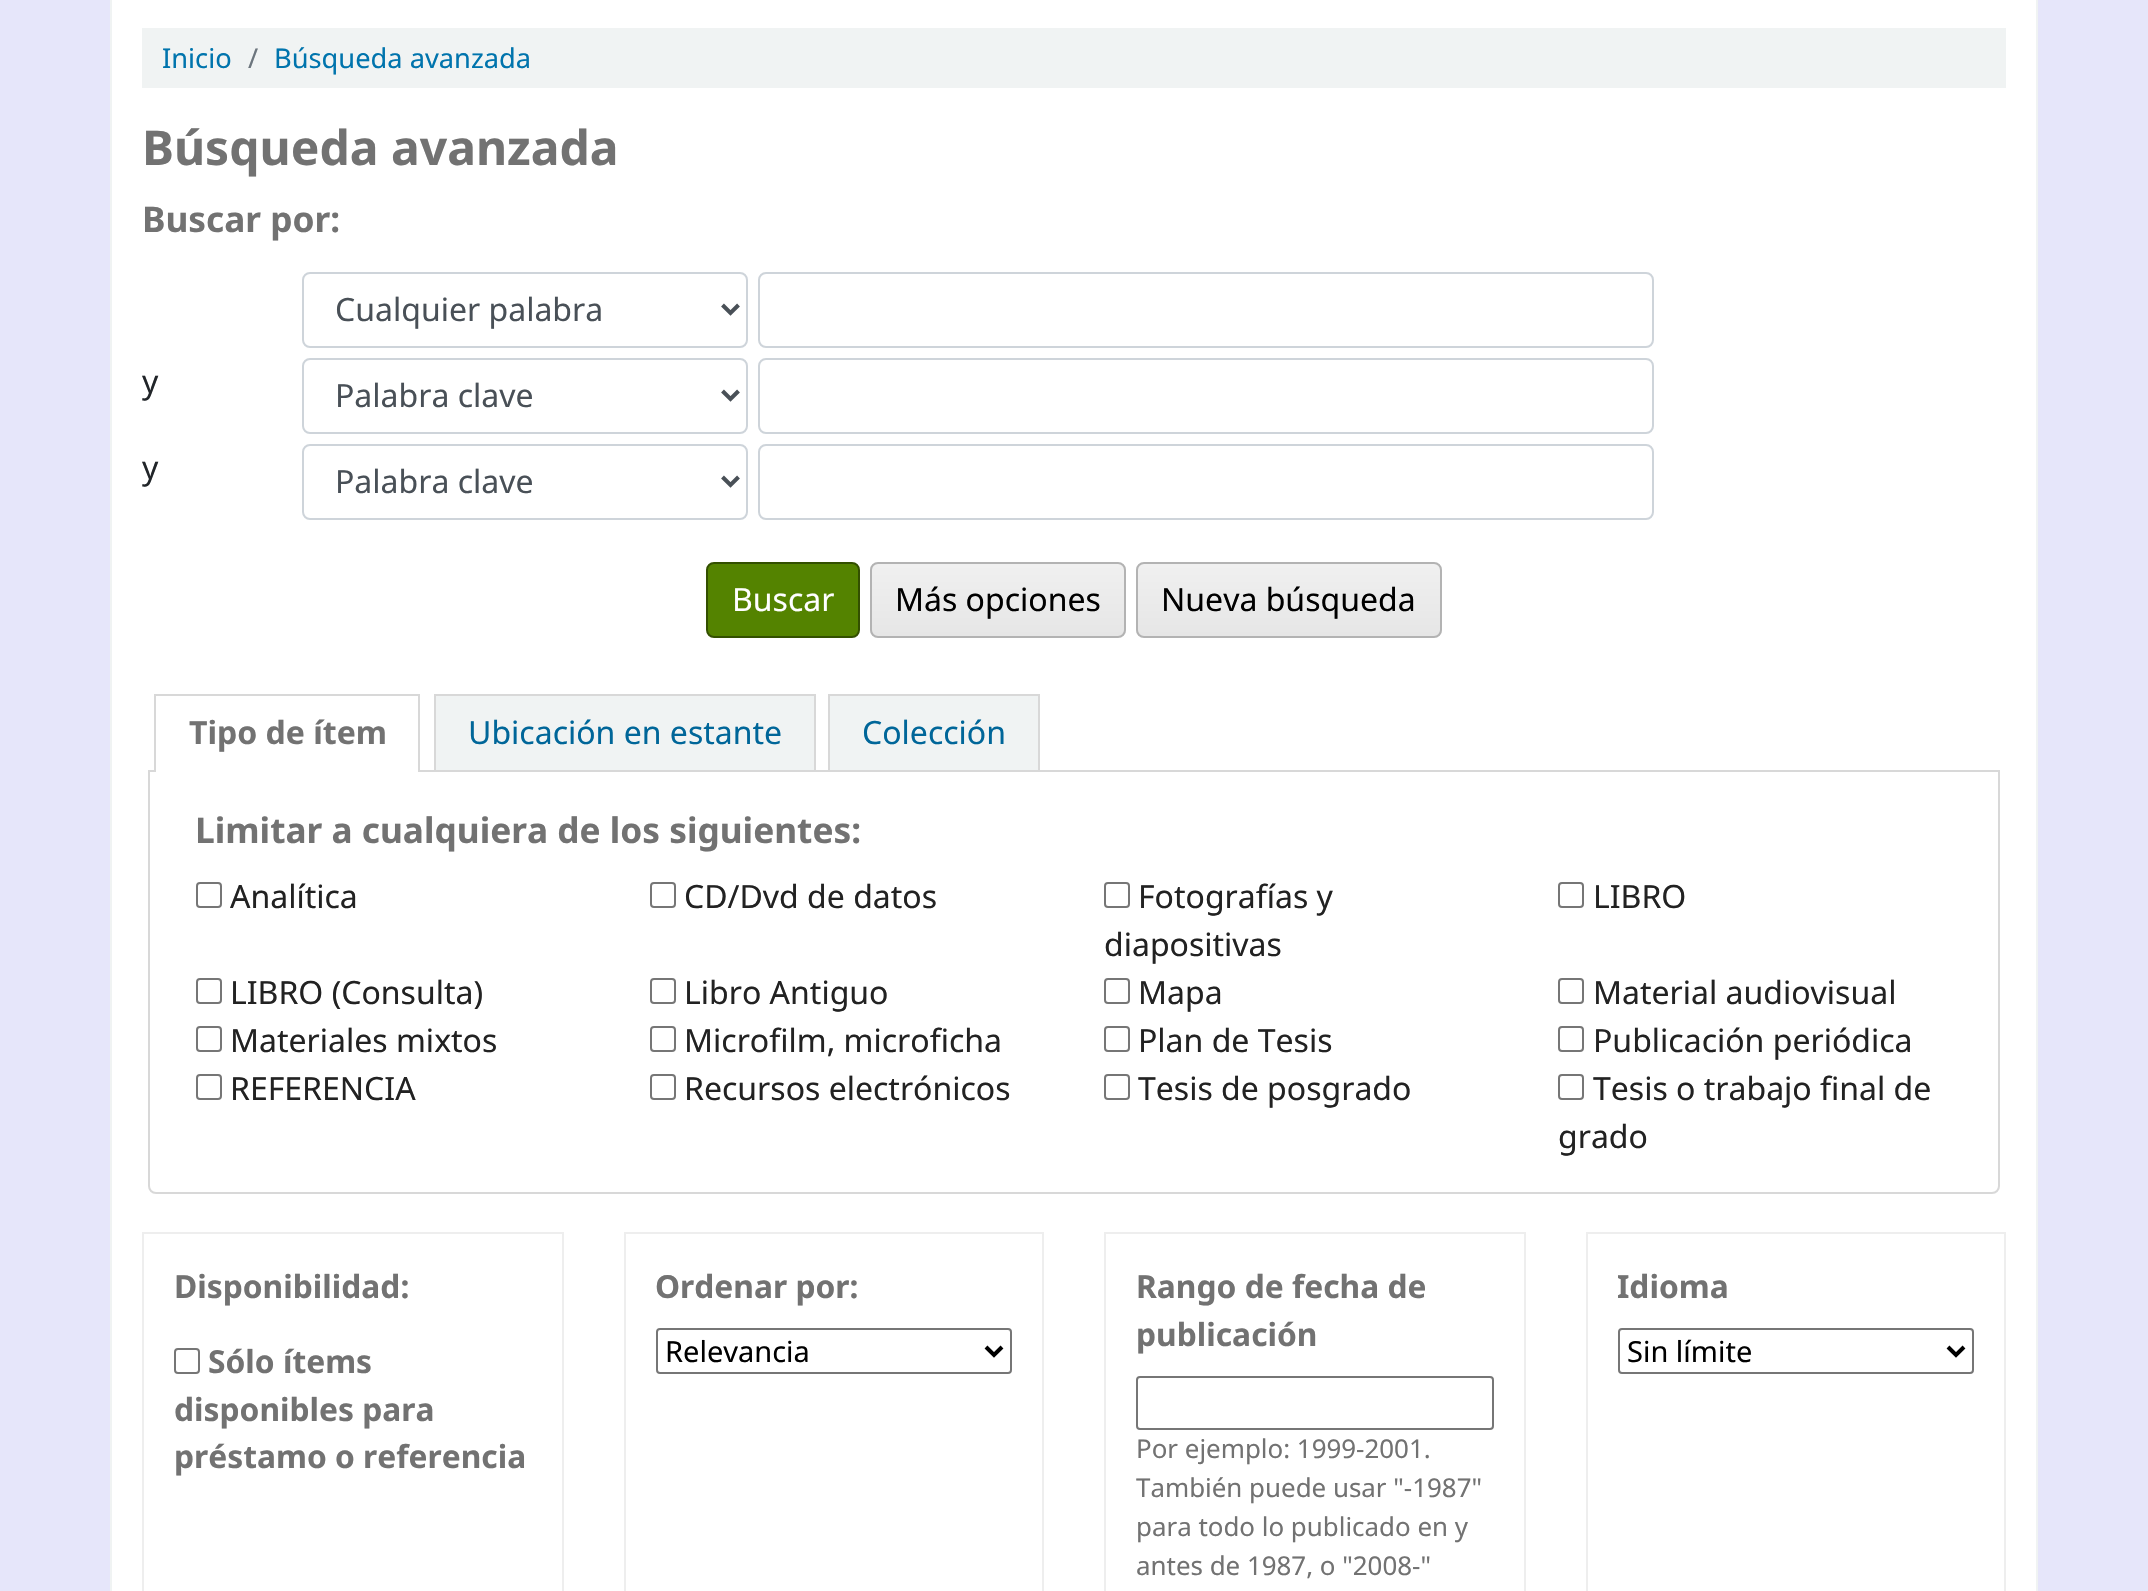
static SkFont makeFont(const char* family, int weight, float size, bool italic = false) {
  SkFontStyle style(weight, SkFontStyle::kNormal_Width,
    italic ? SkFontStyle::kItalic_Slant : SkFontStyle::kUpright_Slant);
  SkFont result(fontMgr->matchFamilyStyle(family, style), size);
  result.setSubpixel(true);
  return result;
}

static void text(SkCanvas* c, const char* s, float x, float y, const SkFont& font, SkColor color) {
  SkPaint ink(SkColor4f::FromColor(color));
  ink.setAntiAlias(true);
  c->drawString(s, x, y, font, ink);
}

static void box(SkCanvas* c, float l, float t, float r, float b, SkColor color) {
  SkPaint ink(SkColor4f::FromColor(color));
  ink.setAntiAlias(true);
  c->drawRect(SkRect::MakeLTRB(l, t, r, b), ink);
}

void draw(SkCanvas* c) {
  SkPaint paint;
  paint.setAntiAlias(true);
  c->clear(0xffe6e6fa);
  paint.setColor(0xffffffff);
  c->drawRect(SkRect::MakeLTRB(111, -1, 2037, 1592), paint);
  paint.setStyle(SkPaint::kStroke_Style);
  paint.setStrokeWidth(2);
  paint.setColor(0xfff0f3f3);
  c->drawRect(SkRect::MakeLTRB(111, -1, 2037, 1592), paint);
  box(c, 142, 28, 2006, 88, 0xfff0f3f3);
  SkFont face1 = makeFont("Noto Sans", 400, 27.25f);
  text(c, "Inicio", 162, 68, face1, 0xff0074ad);
  text(c, "/", 248, 68, face1, 0xff6c757d);
  text(c, "Búsqueda avanzada", 274, 68, face1, 0xff0074ad);
  SkFont face2 = makeFont("Noto Sans", 700, 48);
  text(c, "Búsqueda avanzada", 142, 165, face2, 0xff727272);
  SkFont face3 = makeFont("Noto Sans", 700, 35.25f);
  text(c, "Buscar por:", 142, 232, face3, 0xff727272);
  paint.setColor(0xffced4da);
  c->drawRoundRect(SkRect::MakeLTRB(303, 273, 747, 347), 7, 7, paint);
  paint.setStrokeWidth(4);
  paint.setColor(0xff495057);
  c->drawPath(SkPathBuilder().moveTo(722.5f, 305).lineTo(730.5f, 313).lineTo(738.5f, 305).detach(), paint);
  SkFont face4 = makeFont("Noto Sans", 400, 32);
  text(c, "Cualquier palabra", 335, 321, face4, 0xff495057);
  paint.setStrokeWidth(2);
  paint.setColor(0xffced4da);
  c->drawRoundRect(SkRect::MakeLTRB(759, 273, 1653, 347), 7, 7, paint);
  text(c, "y", 142, 393, face4, 0xff212529);
  c->drawRoundRect(SkRect::MakeLTRB(303, 359, 747, 433), 7, 7, paint);
  paint.setStrokeWidth(4);
  paint.setColor(0xff495057);
  c->drawPath(SkPathBuilder().moveTo(722.5f, 391).lineTo(730.5f, 399).lineTo(738.5f, 391).detach(), paint);
  text(c, "Palabra clave", 335, 407, face4, 0xff495057);
  paint.setStrokeWidth(2);
  paint.setColor(0xffced4da);
  c->drawRoundRect(SkRect::MakeLTRB(759, 359, 1653, 433), 7, 7, paint);
  text(c, "y", 142, 479, face4, 0xff212529);
  c->drawRoundRect(SkRect::MakeLTRB(303, 445, 747, 519), 7, 7, paint);
  paint.setStrokeWidth(4);
  paint.setColor(0xff495057);
  c->drawPath(SkPathBuilder().moveTo(722.5f, 477).lineTo(730.5f, 485).lineTo(738.5f, 477).detach(), paint);
  text(c, "Palabra clave", 335, 493, face4, 0xff495057);
  paint.setStrokeWidth(2);
  paint.setColor(0xffced4da);
  c->drawRoundRect(SkRect::MakeLTRB(759, 445, 1653, 519), 7, 7, paint);
  paint.setStyle(SkPaint::kFill_Style);
  paint.setColor(0xff548300);
  c->drawRoundRect(SkRect::MakeLTRB(707, 563, 859, 637), 7, 7, paint);
  paint.setStyle(SkPaint::kStroke_Style);
  paint.setColor(0xff335000);
  c->drawRoundRect(SkRect::MakeLTRB(707, 563, 859, 637), 7, 7, paint);
  text(c, "Buscar", 732, 611, face4, 0xffffffff);
  c->save();
  c->clipPath(SkPathBuilder().moveTo(878, 562).lineTo(1118, 562).cubicTo(1122.5f, 562, 1126, 565.5f, 1126, 570).lineTo(1126, 630).cubicTo(1126, 634.5f, 1122.5f, 638, 1118, 638).lineTo(878, 638).cubicTo(873.5f, 638, 870, 634.5f, 870, 630).lineTo(870, 570).cubicTo(870, 565.5f, 873.5f, 562, 878, 562).close().detach(), true);
  paint.setStyle(SkPaint::kFill_Style);
  {
    const SkColor colors[] = {0xfff0f0f0, 0xffe6e6e6};
    const float stops[] = {0, 1};
    const SkPoint ends[] = {{998, 564}, {998, 636}};
    paint.setShader(SkGradientShader::MakeLinear(ends, colors, stops, 2, SkTileMode::kClamp));
    paint.setAlpha(255);
  }
  c->drawRect(SkRect::MakeLTRB(870, 564, 1126, 636), paint);
  c->restore();
  paint.setStyle(SkPaint::kStroke_Style);
  paint.setShader(nullptr);
  paint.setColor(0xffb3b3b3);
  c->drawRoundRect(SkRect::MakeLTRB(871, 563, 1125, 637), 7, 7, paint);
  text(c, "Más opciones", 895, 611, face4, 0xff000000);
  c->save();
  c->clipPath(SkPathBuilder().moveTo(1144, 562).lineTo(1434, 562).cubicTo(1438.5f, 562, 1442, 565.5f, 1442, 570).lineTo(1442, 630).cubicTo(1442, 634.5f, 1438.5f, 638, 1434, 638).lineTo(1144, 638).cubicTo(1139.5f, 638, 1136, 634.5f, 1136, 630).lineTo(1136, 570).cubicTo(1136, 565.5f, 1139.5f, 562, 1144, 562).close().detach(), true);
  paint.setStyle(SkPaint::kFill_Style);
  {
    const SkColor colors[] = {0xfff0f0f0, 0xffe6e6e6};
    const float stops[] = {0, 1};
    const SkPoint ends[] = {{1289, 564}, {1289, 636}};
    paint.setShader(SkGradientShader::MakeLinear(ends, colors, stops, 2, SkTileMode::kClamp));
    paint.setAlpha(255);
  }
  c->drawRect(SkRect::MakeLTRB(1136, 564, 1442, 636), paint);
  c->restore();
  paint.setStyle(SkPaint::kStroke_Style);
  paint.setShader(nullptr);
  paint.setColor(0xffb3b3b3);
  c->drawRoundRect(SkRect::MakeLTRB(1137, 563, 1441, 637), 7, 7, paint);
  text(c, "Nueva búsqueda", 1161, 611, face4, 0xff000000);
  paint.setColor(0xffd8d8d8);
  c->drawPath(SkPathBuilder().moveTo(149, 771).lineTo(1999, 771).lineTo(1999, 1186).cubicTo(1999, 1190, 1996, 1193, 1992, 1193).lineTo(156, 1193).cubicTo(152, 1193, 149, 1190, 149, 1186).close().detach(), paint);
  box(c, 156, 770, 418, 772, 0xffffffff);
  box(c, 154, 694, 420, 696, 0xffd8d8d8);
  box(c, 418, 694, 420, 772, 0xffd8d8d8);
  box(c, 154, 694, 156, 772, 0xffd8d8d8);
  SkFont face5 = makeFont("Noto Sans", 700, 32);
  text(c, "Tipo de ítem", 189, 744, face5, 0xff727272);
  box(c, 436, 696, 814, 770, 0xfff0f3f3);
  box(c, 434, 694, 816, 696, 0xffd8d8d8);
  box(c, 814, 694, 816, 770, 0xffd8d8d8);
  box(c, 434, 694, 436, 770, 0xffd8d8d8);
  text(c, "Ubicación en estante", 468, 744, face4, 0xff006699);
  box(c, 830, 696, 1038, 770, 0xfff0f3f3);
  box(c, 828, 694, 1040, 696, 0xffd8d8d8);
  box(c, 1038, 694, 1040, 770, 0xffd8d8d8);
  box(c, 828, 694, 830, 770, 0xffd8d8d8);
  text(c, "Colección", 862, 744, face4, 0xff006699);
  text(c, "Limitar a cualquiera de los siguientes:", 195, 843, face3, 0xff727272);
  paint.setColor(0xff767676);
  c->drawRoundRect(SkRect::MakeLTRB(197, 883, 221, 907), 3, 3, paint);
  text(c, "Analítica", 230, 908, face4, 0xff222222);
  c->drawRoundRect(SkRect::MakeLTRB(651, 883, 675, 907), 3, 3, paint);
  text(c, "CD/Dvd de datos", 684, 908, face4, 0xff222222);
  c->drawRoundRect(SkRect::MakeLTRB(1105, 883, 1129, 907), 3, 3, paint);
  text(c, "Fotografías y", 1138, 908, face4, 0xff222222);
  text(c, "diapositivas", 1104, 956, face4, 0xff222222);
  c->drawRoundRect(SkRect::MakeLTRB(1559, 883, 1583, 907), 3, 3, paint);
  text(c, "LIBRO", 1593, 908, face4, 0xff222222);
  c->drawRoundRect(SkRect::MakeLTRB(197, 979, 221, 1003), 3, 3, paint);
  text(c, "LIBRO (Consulta)", 230, 1004, face4, 0xff222222);
  c->drawRoundRect(SkRect::MakeLTRB(651, 979, 675, 1003), 3, 3, paint);
  text(c, "Libro Antiguo", 684, 1004, face4, 0xff222222);
  c->drawRoundRect(SkRect::MakeLTRB(1105, 979, 1129, 1003), 3, 3, paint);
  text(c, "Mapa", 1138, 1004, face4, 0xff222222);
  c->drawRoundRect(SkRect::MakeLTRB(1559, 979, 1583, 1003), 3, 3, paint);
  text(c, "Material audiovisual", 1593, 1004, face4, 0xff222222);
  c->drawRoundRect(SkRect::MakeLTRB(197, 1027, 221, 1051), 3, 3, paint);
  text(c, "Materiales mixtos", 230, 1052, face4, 0xff222222);
  c->drawRoundRect(SkRect::MakeLTRB(651, 1027, 675, 1051), 3, 3, paint);
  text(c, "Microfilm, microficha", 684, 1052, face4, 0xff222222);
  c->drawRoundRect(SkRect::MakeLTRB(1105, 1027, 1129, 1051), 3, 3, paint);
  text(c, "Plan de Tesis", 1138, 1052, face4, 0xff222222);
  c->drawRoundRect(SkRect::MakeLTRB(1559, 1027, 1583, 1051), 3, 3, paint);
  text(c, "Publicación periódica", 1593, 1052, face4, 0xff222222);
  c->drawRoundRect(SkRect::MakeLTRB(197, 1075, 221, 1099), 3, 3, paint);
  text(c, "REFERENCIA", 230, 1100, face4, 0xff222222);
  c->drawRoundRect(SkRect::MakeLTRB(651, 1075, 675, 1099), 3, 3, paint);
  text(c, "Recursos electrónicos", 684, 1100, face4, 0xff222222);
  c->drawRoundRect(SkRect::MakeLTRB(1105, 1075, 1129, 1099), 3, 3, paint);
  text(c, "Tesis de posgrado", 1138, 1100, face4, 0xff222222);
  c->drawRoundRect(SkRect::MakeLTRB(1559, 1075, 1583, 1099), 3, 3, paint);
  text(c, "Tesis o trabajo final de", 1593, 1100, face4, 0xff222222);
  text(c, "grado", 1558, 1148, face4, 0xff222222);
  paint.setColor(0xffeeeeee);
  c->drawRect(SkRect::MakeLTRB(143, 1233, 563, 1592), paint);
  SkFont face6 = makeFont("Noto Sans", 700, 31.75f);
  text(c, "Disponibilidad:", 174, 1298, face6, 0xff727272);
  paint.setColor(0xff767676);
  c->drawRoundRect(SkRect::MakeLTRB(175, 1349, 199, 1373), 3, 3, paint);
  text(c, "Sólo ítems", 208, 1373, face6, 0xff727272);
  text(c, "disponibles para", 174, 1421, face6, 0xff727272);
  text(c, "préstamo o referencia", 174, 1468, face6, 0xff727272);
  paint.setColor(0xffeeeeee);
  c->drawRect(SkRect::MakeLTRB(625, 1233, 1043, 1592), paint);
  text(c, "Ordenar por:", 655, 1298, face6, 0xff727272);
  paint.setColor(0xff767676);
  c->drawRoundRect(SkRect::MakeLTRB(657, 1329, 1011, 1373), 3, 3, paint);
  paint.setStrokeWidth(4);
  paint.setColor(0xff000000);
  c->drawPath(SkPathBuilder().moveTo(986, 1347).lineTo(994, 1355).lineTo(1002, 1347).detach(), paint);
  SkFont face7 = makeFont("Noto Sans", 400, 29);
  text(c, "Relevancia", 665, 1362, face7, 0xff000000);
  paint.setStrokeWidth(2);
  paint.setColor(0xffeeeeee);
  c->drawRect(SkRect::MakeLTRB(1105, 1233, 1525, 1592), paint);
  text(c, "Rango de fecha de", 1136, 1298, face6, 0xff727272);
  text(c, "publicación", 1136, 1346, face6, 0xff727272);
  paint.setColor(0xff767676);
  c->drawRoundRect(SkRect::MakeLTRB(1137, 1377, 1493, 1429), 3, 3, paint);
  SkFont face8 = makeFont("Noto Sans", 400, 25.9f);
  text(c, "Por ejemplo: 1999-2001.", 1136, 1458, face8, 0xff727272);
  text(c, "También puede usar \"-1987\"", 1136, 1497, face8, 0xff727272);
  text(c, "para todo lo publicado en y", 1136, 1536, face8, 0xff727272);
  text(c, "antes de 1987, o \"2008-\"", 1136, 1575, face8, 0xff727272);
  paint.setColor(0xffeeeeee);
  c->drawRect(SkRect::MakeLTRB(1587, 1233, 2005, 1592), paint);
  text(c, "Idioma", 1617, 1298, face6, 0xff727272);
  paint.setColor(0xff767676);
  c->drawRoundRect(SkRect::MakeLTRB(1619, 1329, 1973, 1373), 3, 3, paint);
  paint.setStrokeWidth(4);
  paint.setColor(0xff000000);
  c->drawPath(SkPathBuilder().moveTo(1948, 1347).lineTo(1956, 1355).lineTo(1964, 1347).detach(), paint);
  text(c, "Sin límite", 1627, 1362, face7, 0xff000000);
}
